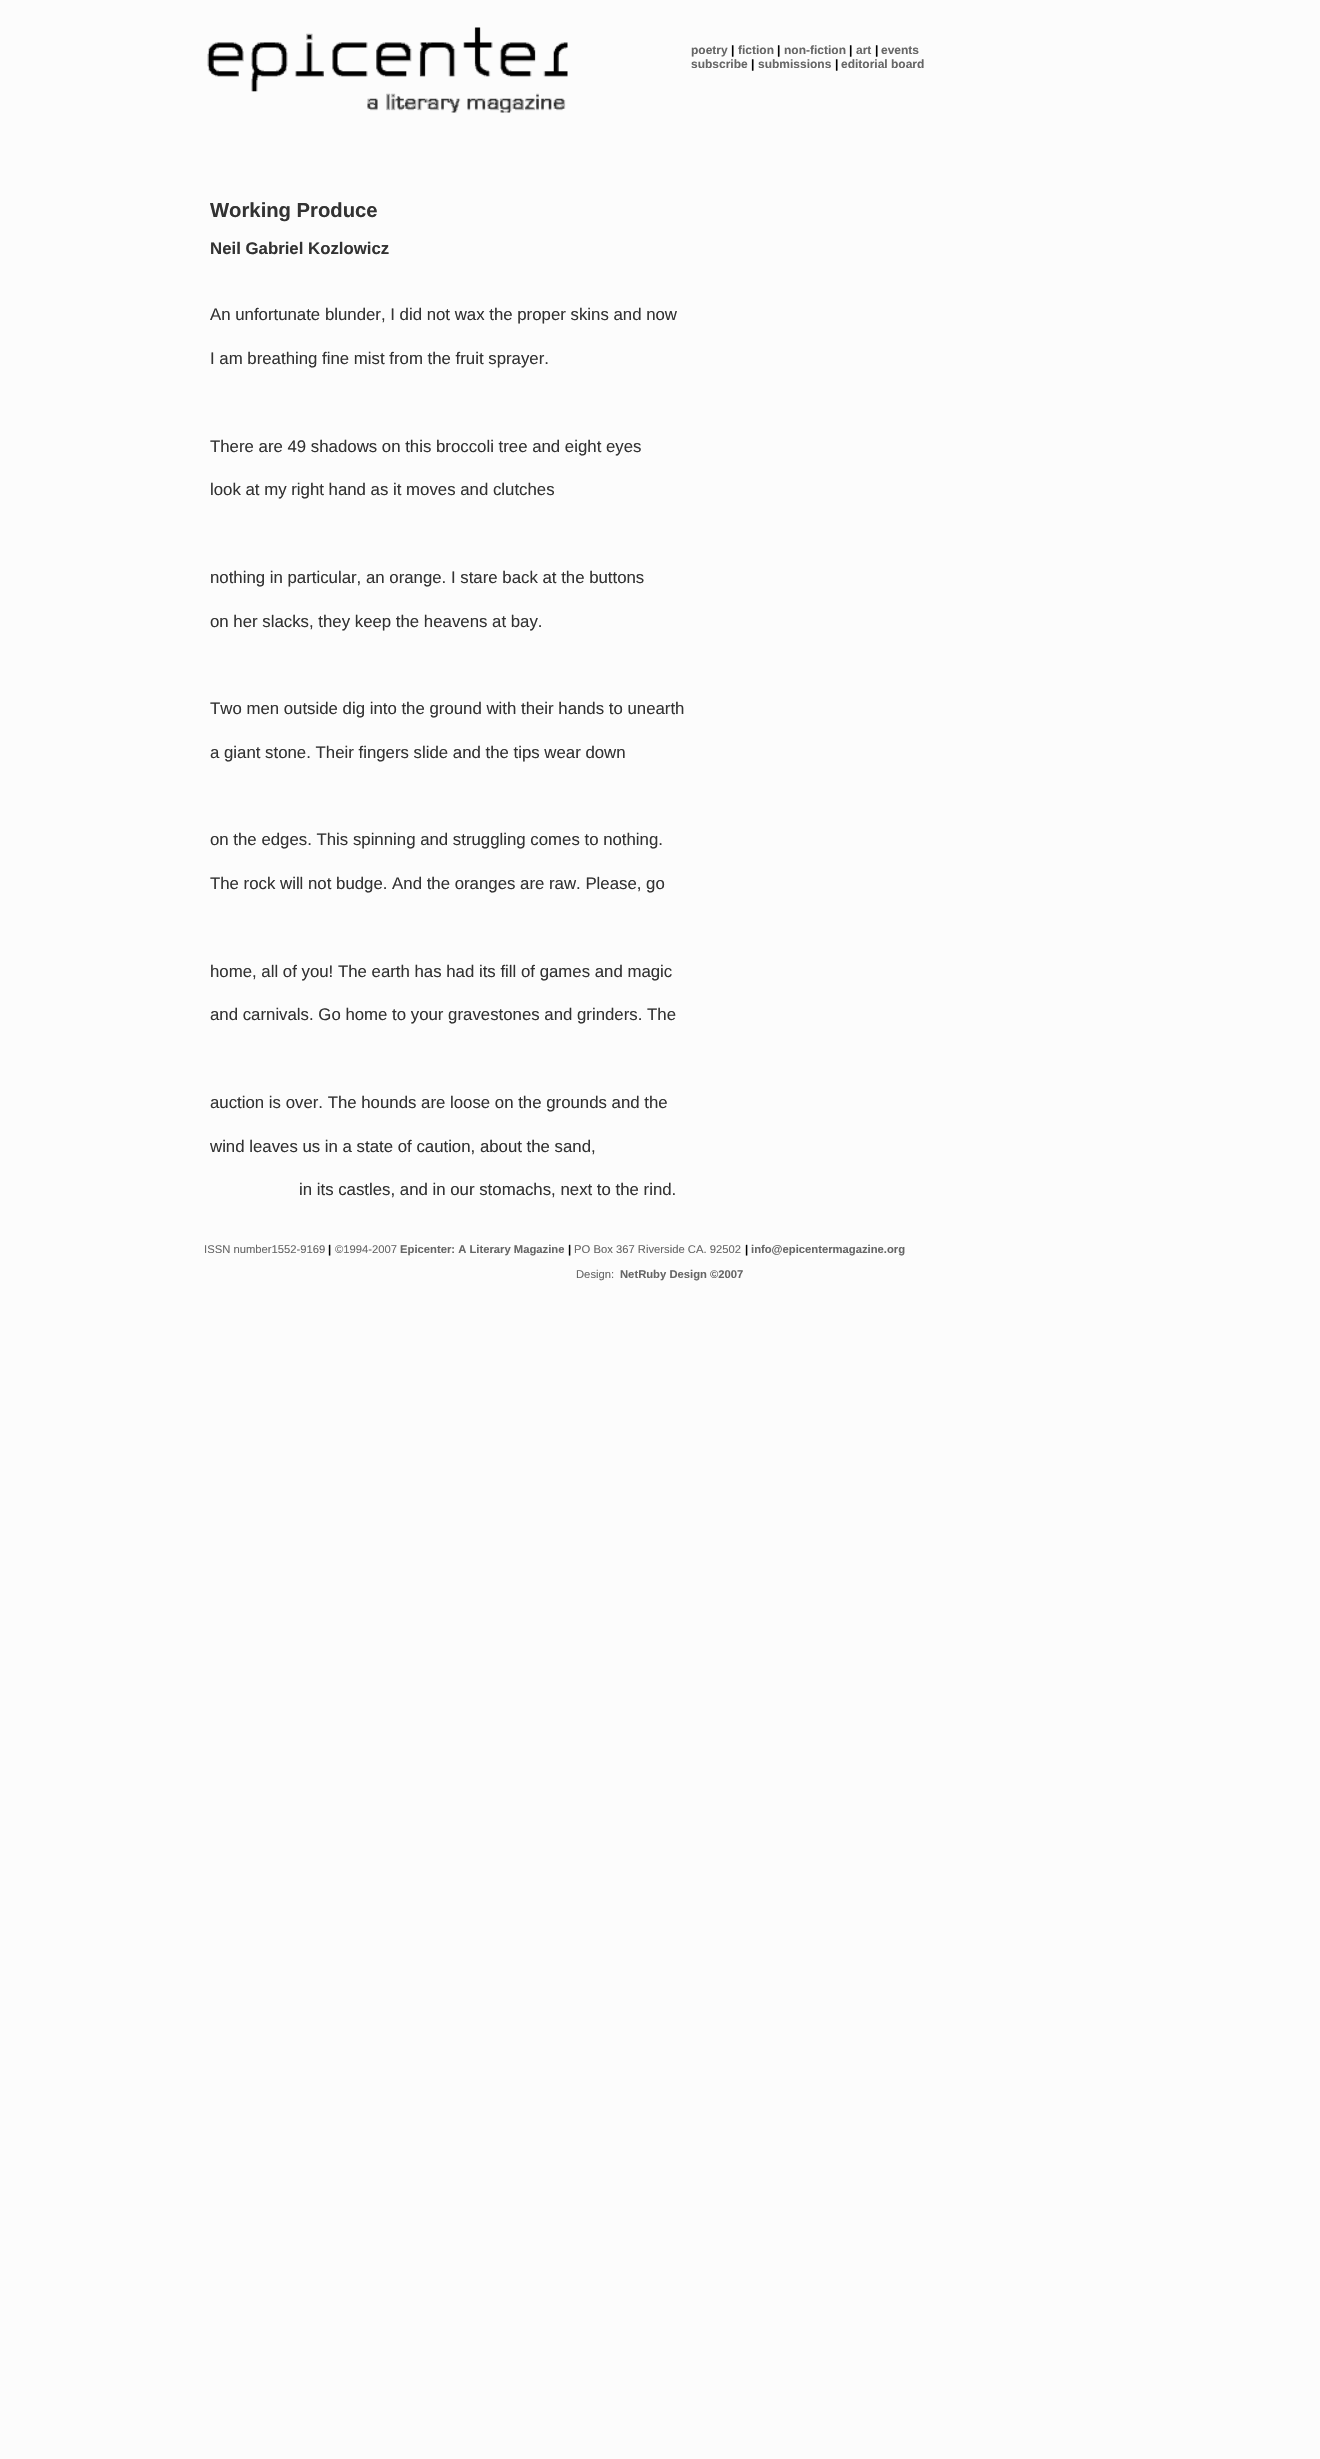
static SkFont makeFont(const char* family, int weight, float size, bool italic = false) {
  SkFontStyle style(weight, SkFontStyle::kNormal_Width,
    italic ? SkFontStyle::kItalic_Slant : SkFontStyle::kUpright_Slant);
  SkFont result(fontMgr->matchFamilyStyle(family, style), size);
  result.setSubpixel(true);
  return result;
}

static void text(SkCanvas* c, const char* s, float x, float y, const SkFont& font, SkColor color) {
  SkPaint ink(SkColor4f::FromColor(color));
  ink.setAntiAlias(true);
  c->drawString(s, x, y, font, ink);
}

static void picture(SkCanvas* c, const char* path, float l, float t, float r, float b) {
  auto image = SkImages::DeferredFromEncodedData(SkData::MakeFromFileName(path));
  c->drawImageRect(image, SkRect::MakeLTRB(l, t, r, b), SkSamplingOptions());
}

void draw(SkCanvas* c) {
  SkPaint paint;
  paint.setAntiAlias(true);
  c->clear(0xfffcfcfc);
  picture(c, "img_01.png", 207, 27, 568, 113);
  SkFont face1 = makeFont("Liberation Sans", 700, 12);
  text(c, "poetry", 691, 54, face1, 0xff666666);
  text(c, "|", 731, 54, face1, 0xff000000);
  text(c, "fiction", 738, 54, face1, 0xff666666);
  text(c, "|", 777, 54, face1, 0xff000000);
  text(c, "non-fiction", 784, 54, face1, 0xff666666);
  text(c, "|", 849, 54, face1, 0xff000000);
  text(c, "art", 856, 54, face1, 0xff666666);
  text(c, "|", 875, 54, face1, 0xff000000);
  text(c, "events", 881, 54, face1, 0xff666666);
  text(c, "subscribe", 691, 68, face1, 0xff666666);
  text(c, "|", 751, 68, face1, 0xff000000);
  text(c, "submissions", 758, 68, face1, 0xff666666);
  text(c, "|", 835, 68, face1, 0xff000000);
  text(c, "editorial board", 841, 68, face1, 0xff666666);
  SkFont face2 = makeFont("Liberation Sans", 700, 20.25f);
  text(c, "Working Produce", 210, 217, face2, 0xff333333);
  SkFont face3 = makeFont("Liberation Sans", 700, 16.8f);
  text(c, "Neil Gabriel Kozlowicz", 210, 254, face3, 0xff333333);
  SkFont face4 = makeFont("Liberation Sans", 400, 16.8f);
  text(c, "An unfortunate blunder, I did not wax the proper skins and now", 210, 320, face4, 0xff333333);
  text(c, "I am breathing fine mist from the fruit sprayer.", 210, 364, face4, 0xff333333);
  text(c, "There are 49 shadows on this broccoli tree and eight eyes", 210, 452, face4, 0xff333333);
  text(c, "look at my right hand as it moves and clutches", 210, 495, face4, 0xff333333);
  text(c, "nothing in particular, an orange. I stare back at the buttons", 210, 583, face4, 0xff333333);
  text(c, "on her slacks, they keep the heavens at bay.", 210, 627, face4, 0xff333333);
  text(c, "Two men outside dig into the ground with their hands to unearth", 210, 714, face4, 0xff333333);
  text(c, "a giant stone. Their fingers slide and the tips wear down", 210, 758, face4, 0xff333333);
  text(c, "on the edges. This spinning and struggling comes to nothing.", 210, 845, face4, 0xff333333);
  text(c, "The rock will not budge. And the oranges are raw. Please, go", 210, 889, face4, 0xff333333);
  text(c, "home, all of you! The earth has had its fill of games and magic", 210, 977, face4, 0xff333333);
  text(c, "and carnivals. Go home to your gravestones and grinders. The", 210, 1020, face4, 0xff333333);
  text(c, "auction is over. The hounds are loose on the grounds and the", 210, 1108, face4, 0xff333333);
  text(c, "wind leaves us in a state of caution, about the sand,", 210, 1152, face4, 0xff333333);
  text(c, "in its castles, and in our stomachs, next to the rind.", 299, 1195, face4, 0xff333333);
  SkFont face5 = makeFont("Liberation Sans", 400, 11.25f);
  text(c, "ISSN number1552-9169", 204, 1253, face5, 0xff666666);
  SkFont face6 = makeFont("Liberation Sans", 700, 11.25f);
  text(c, "|", 328, 1253, face6, 0xff000000);
  text(c, "©1994-2007", 335, 1253, face5, 0xff666666);
  text(c, "Epicenter: A Literary Magazine", 400, 1253, face6, 0xff666666);
  text(c, "|", 568, 1253, face6, 0xff000000);
  text(c, "PO Box 367 Riverside CA. 92502", 574, 1253, face5, 0xff666666);
  text(c, "|", 745, 1253, face6, 0xff000000);
  text(c, "info@epicentermagazine.org", 751, 1253, face6, 0xff666666);
  text(c, "Design:", 576, 1278, face5, 0xff666666);
  text(c, "NetRuby Design ©2007", 620, 1278, face6, 0xff666666);
}
